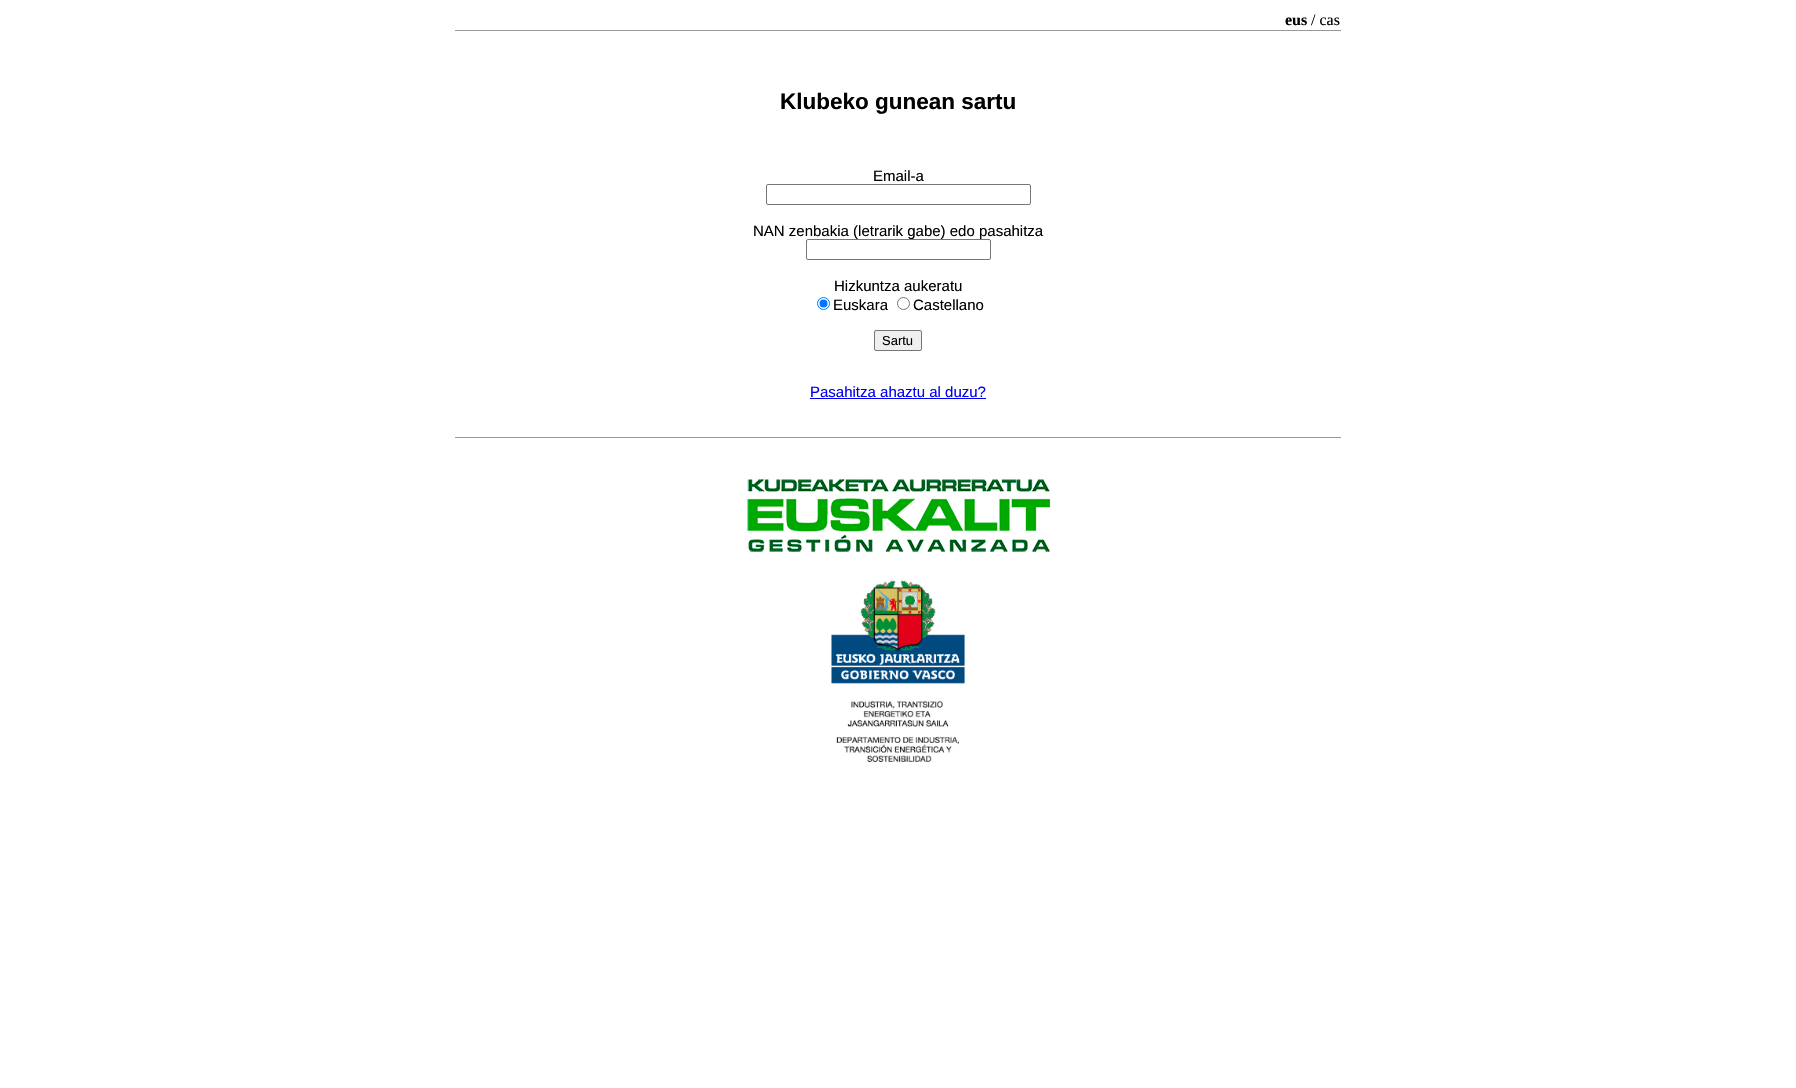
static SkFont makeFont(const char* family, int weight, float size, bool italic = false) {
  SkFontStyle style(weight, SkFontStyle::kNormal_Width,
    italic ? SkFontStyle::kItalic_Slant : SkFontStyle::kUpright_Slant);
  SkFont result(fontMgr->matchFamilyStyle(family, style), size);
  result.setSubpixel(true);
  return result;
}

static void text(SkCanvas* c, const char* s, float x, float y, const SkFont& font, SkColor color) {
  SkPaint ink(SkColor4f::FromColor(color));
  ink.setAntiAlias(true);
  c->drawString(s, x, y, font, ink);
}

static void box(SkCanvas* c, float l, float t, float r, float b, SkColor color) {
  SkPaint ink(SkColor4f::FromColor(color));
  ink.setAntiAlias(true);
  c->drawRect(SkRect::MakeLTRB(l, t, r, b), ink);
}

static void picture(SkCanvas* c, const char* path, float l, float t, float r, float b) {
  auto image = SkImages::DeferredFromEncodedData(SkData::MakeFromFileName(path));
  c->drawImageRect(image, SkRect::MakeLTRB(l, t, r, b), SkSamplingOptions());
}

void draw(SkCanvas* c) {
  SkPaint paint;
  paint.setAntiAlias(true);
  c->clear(0xffffffff);
  box(c, 455, 30, 1341, 31, 0xff999999);
  SkFont face1 = makeFont("Liberation Serif", 700, 16);
  text(c, "eus", 1285, 25, face1, 0xff000000);
  SkFont face2 = makeFont("Liberation Serif", 400, 16);
  text(c, "/ cas", 1311, 25, face2, 0xff000000);
  box(c, 455, 437, 1341, 438, 0xff999999);
  SkFont face3 = makeFont("Liberation Sans", 700, 22.5f);
  text(c, "Klubeko gunean sartu", 780, 109, face3, 0xff000000);
  SkFont face4 = makeFont("Liberation Sans", 400, 15);
  text(c, "Email-a", 873, 181, face4, 0xff000000);
  paint.setStyle(SkPaint::kStroke_Style);
  paint.setStrokeWidth(1);
  paint.setColor(0xff767676);
  c->drawRoundRect(SkRect::MakeLTRB(766.5f, 184.5f, 1030.5f, 204.5f), 1.5f, 1.5f, paint);
  text(c, "NAN zenbakia (letrarik gabe) edo pasahitza", 753, 236, face4, 0xff000000);
  paint.setStyle(SkPaint::kFill_Style);
  paint.setColor(0xffffffff);
  c->drawRoundRect(SkRect::MakeLTRB(806.5f, 239.5f, 990.5f, 259.5f), 1.5f, 1.5f, paint);
  paint.setStyle(SkPaint::kStroke_Style);
  paint.setColor(0xff767676);
  c->drawRoundRect(SkRect::MakeLTRB(806.5f, 239.5f, 990.5f, 259.5f), 1.5f, 1.5f, paint);
  text(c, "Hizkuntza aukeratu", 834, 291, face4, 0xff000000);
  paint.setColor(0xff0075ff);
  c->drawCircle(823.5f, 303.5f, 6, paint);
  paint.setStyle(SkPaint::kFill_Style);
  c->drawCircle(823.5f, 303.5f, 4, paint);
  text(c, "Euskara", 833, 310, face4, 0xff000000);
  paint.setStyle(SkPaint::kStroke_Style);
  paint.setColor(0xff767676);
  c->drawCircle(903.5f, 303.5f, 6, paint);
  text(c, "Castellano", 913, 310, face4, 0xff000000);
  paint.setStyle(SkPaint::kFill_Style);
  paint.setColor(0xffefefef);
  c->drawRoundRect(SkRect::MakeLTRB(874.5f, 330.5f, 921.5f, 350.5f), 1.5f, 1.5f, paint);
  paint.setStyle(SkPaint::kStroke_Style);
  paint.setColor(0xff767676);
  c->drawRoundRect(SkRect::MakeLTRB(874.5f, 330.5f, 921.5f, 350.5f), 1.5f, 1.5f, paint);
  SkFont face5 = makeFont("Liberation Sans", 400, 13);
  text(c, "Sartu", 882, 345, face5, 0xff000000);
  text(c, "Pasahitza ahaztu al duzu?", 810, 397, face4, 0xff0000ee);
  box(c, 810, 398, 986, 399, 0xff0000ee);
  picture(c, "img_01.png", 747, 479, 1050, 552);
  picture(c, "img_02.png", 831, 580, 966, 762);
}
